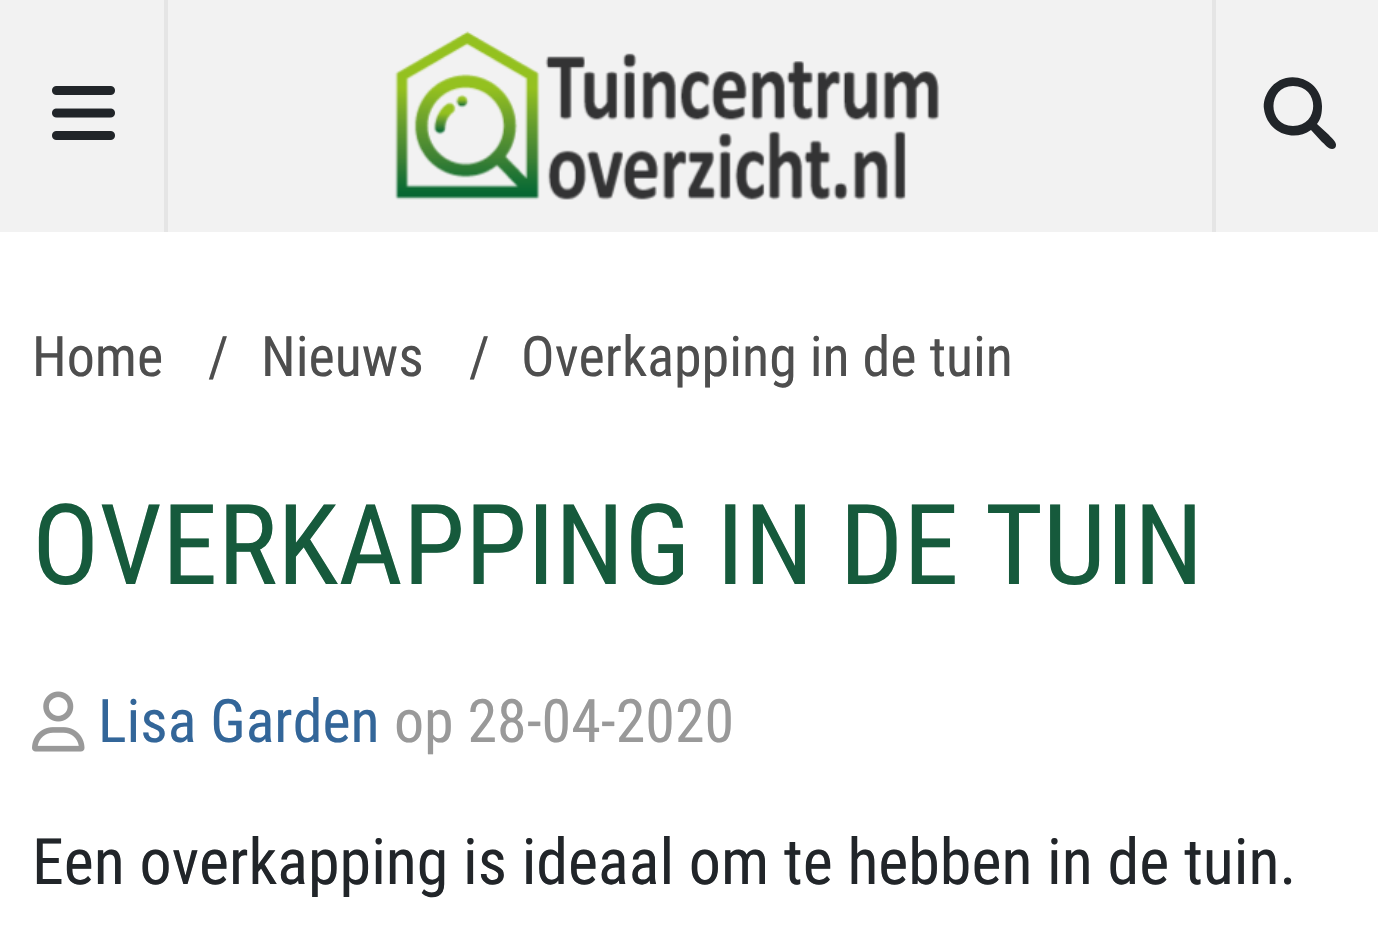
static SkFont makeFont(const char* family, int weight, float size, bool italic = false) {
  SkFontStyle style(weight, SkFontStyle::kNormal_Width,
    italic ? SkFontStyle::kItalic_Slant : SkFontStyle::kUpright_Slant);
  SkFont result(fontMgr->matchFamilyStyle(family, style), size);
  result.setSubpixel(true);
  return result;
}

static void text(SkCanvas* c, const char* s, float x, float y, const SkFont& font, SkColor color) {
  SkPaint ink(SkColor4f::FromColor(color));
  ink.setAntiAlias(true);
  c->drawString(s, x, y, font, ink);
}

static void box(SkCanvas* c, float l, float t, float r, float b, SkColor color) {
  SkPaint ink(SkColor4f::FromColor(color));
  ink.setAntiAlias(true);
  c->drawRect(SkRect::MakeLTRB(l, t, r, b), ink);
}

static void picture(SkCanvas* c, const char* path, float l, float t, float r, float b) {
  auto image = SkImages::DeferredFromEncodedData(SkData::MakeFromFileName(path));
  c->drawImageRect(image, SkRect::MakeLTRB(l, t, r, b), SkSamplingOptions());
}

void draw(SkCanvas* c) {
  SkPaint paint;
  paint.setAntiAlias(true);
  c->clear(0xffffffff);
  box(c, 0, 0, 1378, 232, 0xfff2f2f2);
  box(c, 164, 0, 168, 232, 0xffe5e5e5);
  picture(c, "img_01.png", 52, 86, 115, 140);
  picture(c, "img_02.png", 394, 31, 940, 200);
  box(c, 1212, 0, 1216, 232, 0xffe5e5e5);
  paint.setColor(0xff212529);
  c->drawPath(SkPathBuilder().moveTo(1322, 106).cubicTo(1322, 113, 1321, 119, 1317, 124).lineTo(1329, 135).cubicTo(1331, 138, 1339, 143, 1335, 148).cubicTo(1330, 152, 1325, 144, 1322, 142).lineTo(1311, 130).cubicTo(1300, 138, 1285, 137, 1275, 129).cubicTo(1269, 124, 1265, 117, 1264, 109).cubicTo(1263, 103, 1265, 96, 1269, 90).cubicTo(1285, 66, 1322, 78, 1322, 106).close().moveTo(1293, 126).cubicTo(1320, 126, 1320, 86, 1293, 86).cubicTo(1267, 86, 1267, 126, 1293, 126).close().detach(), paint);
  SkFont face1 = makeFont("Roboto Condensed", 400, 56);
  text(c, "Home", 32, 376, face1, 0xff4e4e4e);
  text(c, "/", 208, 376, face1, 0xff4e4e4e);
  text(c, "Nieuws", 261, 376, face1, 0xff4e4e4e);
  text(c, "/", 469, 376, face1, 0xff4e4e4e);
  text(c, "Overkapping in de tuin", 521, 376, face1, 0xff4e4e4e);
  SkFont face2 = makeFont("Roboto Condensed", 400, 112);
  text(c, "OVERKAPPING IN DE TUIN", 32, 584, face2, 0xff165a3c);
  picture(c, "img_03.png", 32, 691, 85, 752);
  SkFont face3 = makeFont("Roboto Condensed", 400, 60);
  text(c, "Lisa Garden", 98, 742, face3, 0xff336699);
  text(c, "op 28-04-2020", 394, 742, face3, 0xff999999);
  SkFont face4 = makeFont("Roboto Condensed", 400, 64);
  text(c, "Een overkapping is ideaal om te hebben in de tuin.", 32, 884, face4, 0xff212529);
}
